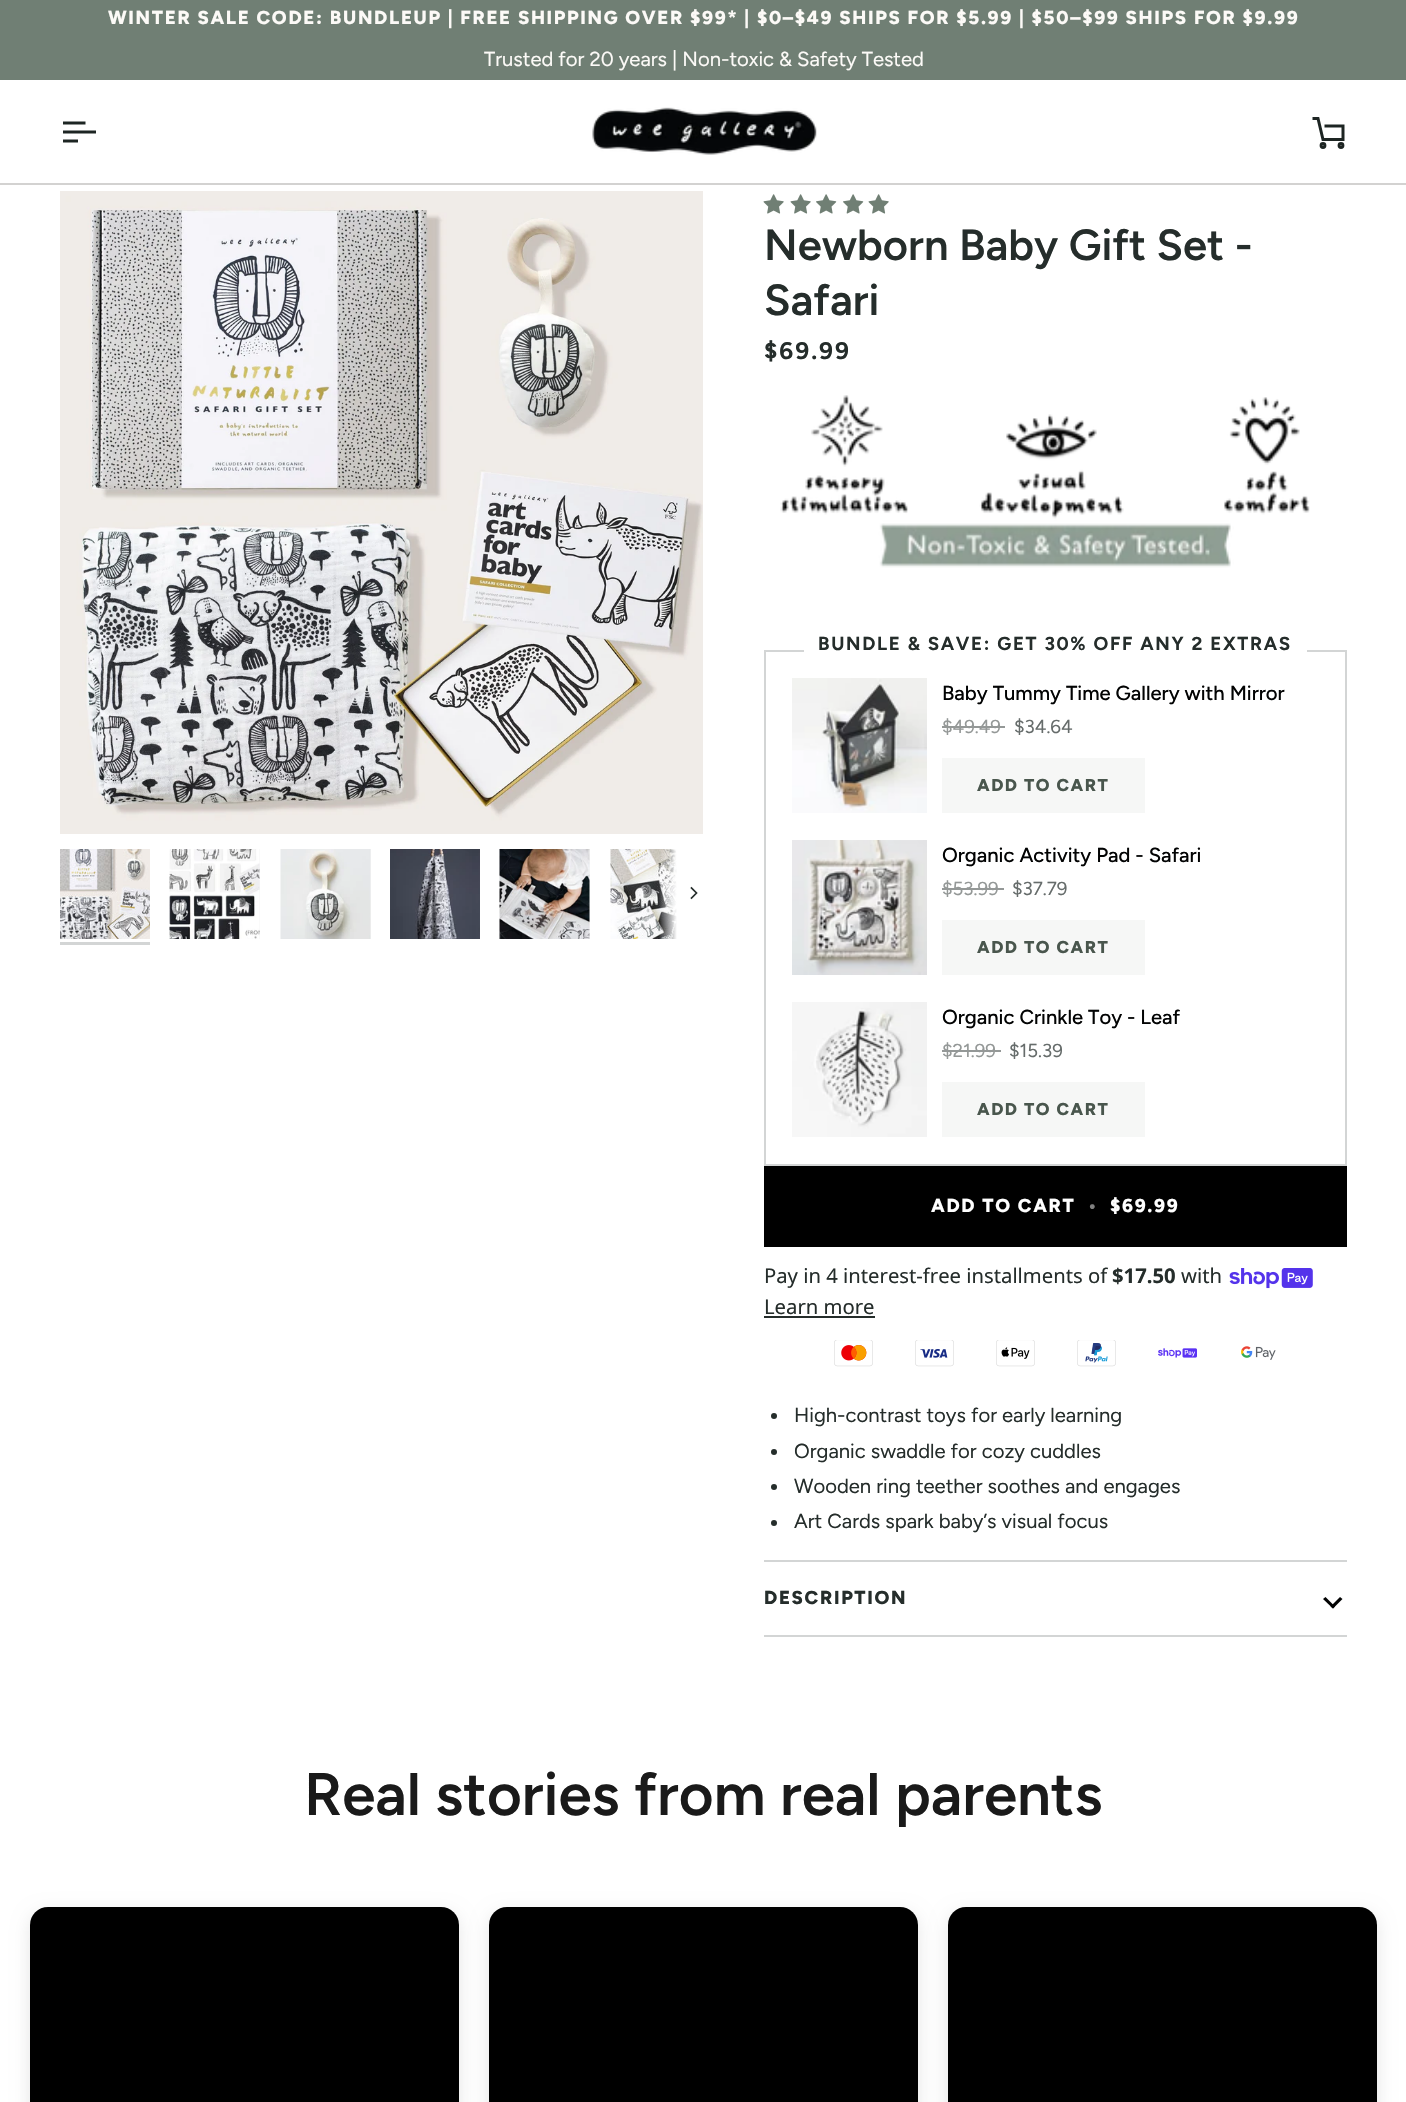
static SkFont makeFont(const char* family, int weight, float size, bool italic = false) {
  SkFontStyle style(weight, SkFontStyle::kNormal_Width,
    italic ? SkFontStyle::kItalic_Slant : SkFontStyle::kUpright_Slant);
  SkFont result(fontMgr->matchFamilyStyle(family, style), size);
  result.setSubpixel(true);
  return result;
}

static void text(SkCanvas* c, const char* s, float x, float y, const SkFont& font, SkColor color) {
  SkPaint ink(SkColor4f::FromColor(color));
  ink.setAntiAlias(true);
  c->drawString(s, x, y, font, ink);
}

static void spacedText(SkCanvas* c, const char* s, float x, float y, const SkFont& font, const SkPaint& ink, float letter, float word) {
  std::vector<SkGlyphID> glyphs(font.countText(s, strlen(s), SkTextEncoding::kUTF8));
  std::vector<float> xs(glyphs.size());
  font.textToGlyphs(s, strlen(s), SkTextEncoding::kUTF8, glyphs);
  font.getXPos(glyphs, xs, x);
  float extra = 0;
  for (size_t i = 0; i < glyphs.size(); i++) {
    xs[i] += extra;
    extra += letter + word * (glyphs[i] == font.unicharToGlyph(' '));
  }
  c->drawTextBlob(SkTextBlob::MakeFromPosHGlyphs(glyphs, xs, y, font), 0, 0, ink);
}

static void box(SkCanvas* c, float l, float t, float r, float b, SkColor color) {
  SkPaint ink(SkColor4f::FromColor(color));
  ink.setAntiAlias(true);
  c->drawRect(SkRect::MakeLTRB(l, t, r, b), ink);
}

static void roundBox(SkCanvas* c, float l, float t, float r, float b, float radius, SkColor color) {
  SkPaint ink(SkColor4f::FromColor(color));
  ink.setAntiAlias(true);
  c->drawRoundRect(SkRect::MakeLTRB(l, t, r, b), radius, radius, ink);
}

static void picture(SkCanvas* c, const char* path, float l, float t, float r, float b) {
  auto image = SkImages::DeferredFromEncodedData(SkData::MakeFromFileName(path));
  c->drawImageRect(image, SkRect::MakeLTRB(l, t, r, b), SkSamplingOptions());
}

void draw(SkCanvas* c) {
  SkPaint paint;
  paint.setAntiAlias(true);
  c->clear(0xffffffff);
  box(c, 0, 0, 1406, 80, 0xff707f74);
  SkFont face1 = makeFont("Figtree", 800, 18.75f);
  paint.setColor(0xfffcfaf7);
  spacedText(c, "WINTER SALE CODE: BUNDLEUP | FREE SHIPPING OVER $99* | $0–$49 SHIPS FOR $5.99 | $50–$99 SHIPS FOR $9.99", 108, 24, face1, paint, 1.69f, 0);
  box(c, 0, 183, 1406, 185, 0xffd3d2d1);
  SkFont face2 = makeFont("Figtree", 400, 20.25f);
  text(c, "Trusted for 20 years | Non-toxic & Safety Tested", 484, 66, face2, 0xfffcfaf7);
  paint.setStyle(SkPaint::kStroke_Style);
  paint.setStrokeWidth(3);
  paint.setStrokeCap(SkPaint::kSquare_Cap);
  paint.setColor(0xff1d2523);
  c->drawPath(SkPathBuilder().moveTo(84, 123).lineTo(64.5f, 123).moveTo(94.5f, 132).lineTo(64.5f, 132).moveTo(76.5f, 141).lineTo(64.5f, 141).detach(), paint);
  picture(c, "img_01.png", 592, 107, 817, 155);
  paint.setStrokeCap(SkPaint::kButt_Cap);
  c->drawPath(SkPathBuilder().moveTo(1312.5f, 118.5f).lineTo(1318, 118.5f).lineTo(1323, 139.5f).lineTo(1343, 139.5f).lineTo(1343, 126).lineTo(1324.5f, 126).detach(), paint);
  c->drawCircle(1323, 145.5f, 1.9f, paint);
  c->drawCircle(1341, 145.5f, 1.9f, paint);
  picture(c, "img_02.png", 60, 191, 703, 834);
  picture(c, "img_03.png", 60, 849, 150, 939);
  box(c, 60, 942, 150, 945, 0xffd3d5d5);
  box(c, 259, 849, 260, 939, 0xfff4f5f4);
  picture(c, "img_04.png", 169, 849, 260, 939);
  box(c, 370, 849, 371, 939, 0xfff4f5f4);
  picture(c, "img_05.png", 280, 849, 371, 939);
  picture(c, "img_06.png", 390, 849, 480, 939);
  box(c, 589, 849, 590, 939, 0xfff4f5f4);
  picture(c, "img_07.png", 499, 849, 590, 939);
  picture(c, "img_08.png", 610, 849, 677, 939);
  paint.setStyle(SkPaint::kFill_Style);
  {
    const SkColor colors[] = {0x00ffffff, 0xffffffff};
    const float stops[] = {0, 0.4f};
    const SkPoint ends[] = {{659, 894}, {704, 894}};
    paint.setShader(SkGradientShader::MakeLinear(ends, colors, stops, 2, SkTileMode::kClamp));
    paint.setAlpha(255);
  }
  c->drawRect(SkRect::MakeLTRB(659, 849, 677, 939), paint);
  paint.setStyle(SkPaint::kStroke_Style);
  paint.setStrokeWidth(1.7f);
  paint.setStrokeCap(SkPaint::kSquare_Cap);
  paint.setShader(nullptr);
  paint.setColor(0xff252d2b);
  c->drawPath(SkPathBuilder().moveTo(691.5f, 898).lineTo(696.5f, 893).lineTo(691.5f, 888).detach(), paint);
  picture(c, "img_09.png", 763, 194, 784, 214);
  picture(c, "img_09.png", 790, 194, 811, 214);
  picture(c, "img_10.png", 816, 194, 837, 214);
  picture(c, "img_10.png", 843, 194, 864, 214);
  picture(c, "img_09.png", 868, 194, 889, 214);
  SkFont face3 = makeFont("Figtree", 600, 43.5f);
  text(c, "Newborn Baby Gift Set -", 764, 260, face3, 0xff252d2b);
  text(c, "Safari", 764, 315, face3, 0xff252d2b);
  SkFont face4 = makeFont("Figtree", 700, 24);
  paint.setStyle(SkPaint::kFill_Style);
  spacedText(c, "$69.99", 764, 359, face4, paint, 2, 0);
  picture(c, "img_11.png", 780, 395, 1310, 568);
  paint.setStyle(SkPaint::kStroke_Style);
  paint.setStrokeWidth(2);
  paint.setStrokeCap(SkPaint::kButt_Cap);
  paint.setColor(0xffd3d5d5);
  c->drawRect(SkRect::MakeLTRB(765, 651, 1346, 1165), paint);
  box(c, 804, 650, 1307, 652, 0xffffffff);
  SkFont face5 = makeFont("Figtree", 700, 18.75f);
  paint.setStyle(SkPaint::kFill_Style);
  paint.setColor(0xff252d2b);
  spacedText(c, "BUNDLE & SAVE: GET 30% OFF ANY 2 EXTRAS", 818, 650, face5, paint, 1.69f, 0);
  picture(c, "img_12.png", 792, 678, 927, 813);
  SkFont face6 = makeFont("Figtree", 500, 20.25f);
  text(c, "Baby Tummy Time Gallery with Mirror", 942, 700, face6, 0xff020303);
  SkFont face7 = makeFont("Figtree", 400, 18.75f);
  text(c, "$49.49", 942, 733, face7, 0xff949897);
  box(c, 942, 726, 1005, 728, 0xff949897);
  text(c, "$34.64", 1014, 733, face7, 0xff666c6b);
  box(c, 942, 758, 1145, 813, 0xfff6f7f6);
  SkFont face8 = makeFont("Figtree", 800, 17.25f);
  paint.setColor(0xff49564d);
  spacedText(c, "ADD TO CART", 977, 791, face8, paint, 1.5f, 0);
  picture(c, "img_13.png", 792, 840, 927, 975);
  text(c, "Organic Activity Pad - Safari", 942, 862, face6, 0xff020303);
  text(c, "$53.99", 942, 895, face7, 0xff949897);
  box(c, 942, 888, 1004, 890, 0xff949897);
  text(c, "$37.79", 1012, 895, face7, 0xff666c6b);
  box(c, 942, 920, 1145, 975, 0xfff6f7f6);
  spacedText(c, "ADD TO CART", 977, 953, face8, paint, 1.5f, 0);
  picture(c, "img_14.png", 792, 1002, 927, 1137);
  text(c, "Organic Crinkle Toy - Leaf", 942, 1024, face6, 0xff020303);
  text(c, "$21.99", 942, 1057, face7, 0xff949897);
  box(c, 942, 1050, 1001, 1052, 0xff949897);
  text(c, "$15.39", 1009, 1057, face7, 0xff666c6b);
  box(c, 942, 1082, 1145, 1137, 0xfff6f7f6);
  spacedText(c, "ADD TO CART", 977, 1115, face8, paint, 1.5f, 0);
  box(c, 764, 1166, 1347, 1247, 0xff000000);
  paint.setColor(0xffffffff);
  spacedText(c, "ADD TO CART", 931, 1212, face1, paint, 1.69f, 0);
  paint.setColor(0xff808080);
  spacedText(c, "•", 1088, 1212, face1, paint, 1.69f, 0);
  paint.setColor(0xffffffff);
  spacedText(c, "$69.99", 1110, 1212, face1, paint, 1.69f, 0);
  SkFont face9 = makeFont("Noto Sans", 400, 20.25f);
  text(c, "Pay in 4 interest-free installments of", 764, 1283, face9, 0xff252d2b);
  SkFont face10 = makeFont("Noto Sans", 700, 20.25f);
  text(c, "$17.50", 1112, 1283, face10, 0xff252d2b);
  text(c, "with", 1181, 1283, face9, 0xff252d2b);
  picture(c, "img_15.png", 1229, 1268, 1313, 1289);
  text(c, "Learn more", 764, 1314, face9, 0xff252d2b);
  box(c, 764, 1316, 875, 1318, 0xff252d2b);
  picture(c, "img_16.png", 834, 1340, 873, 1367);
  picture(c, "img_17.png", 915, 1340, 954, 1367);
  picture(c, "img_18.png", 996, 1340, 1035, 1367);
  picture(c, "img_19.png", 1077, 1340, 1116, 1367);
  picture(c, "img_20.png", 1158, 1348, 1197, 1358);
  picture(c, "img_21.png", 1241, 1346, 1276, 1360);
  paint.setColor(0xff252d2b);
  c->drawCircle(774, 1416, 3, paint);
  text(c, "High-contrast toys for early learning", 794, 1422, face2, 0xff252d2b);
  c->drawCircle(774, 1452, 3, paint);
  text(c, "Organic swaddle for cozy cuddles", 794, 1458, face2, 0xff252d2b);
  c->drawCircle(774, 1487, 3, paint);
  text(c, "Wooden ring teether soothes and engages", 794, 1493, face2, 0xff252d2b);
  c->drawCircle(774, 1523, 3, paint);
  text(c, "Art Cards spark baby’s visual focus", 794, 1528, face2, 0xff252d2b);
  box(c, 764, 1560, 1347, 1562, 0xffd3d5d5);
  box(c, 764, 1635, 1347, 1637, 0xffd3d5d5);
  spacedText(c, "DESCRIPTION", 764, 1604, face1, paint, 1.69f, 0);
  paint.setColor(0xff020303);
  c->drawPath(SkPathBuilder().moveTo(1330.5f, 1606.5f).lineTo(1340, 1597).lineTo(1342.5f, 1599).lineTo(1333, 1608.5f).close().detach(), paint);
  c->drawPath(SkPathBuilder().moveTo(1323, 1599).lineTo(1325.5f, 1597).lineTo(1335, 1606.5f).lineTo(1333, 1608.5f).close().detach(), paint);
  SkFont face11 = makeFont("Figtree", 600, 60);
  text(c, "Real stories from real parents", 304, 1815, face11, 0xff1a1a1a);
  paint.setColor(0x1a000000);
  paint.setMaskFilter(SkMaskFilter::MakeBlur(kNormal_SkBlurStyle, 9));
  c->drawRoundRect(SkRect::MakeLTRB(30, 1913, 459, 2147), 18, 18, paint);
  paint.setMaskFilter(nullptr);
  roundBox(c, 30, 1907, 459, 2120, 18, 0xff000000);
  paint.setMaskFilter(SkMaskFilter::MakeBlur(kNormal_SkBlurStyle, 9));
  c->drawRoundRect(SkRect::MakeLTRB(489, 1913, 918, 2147), 18, 18, paint);
  paint.setMaskFilter(nullptr);
  roundBox(c, 489, 1907, 918, 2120, 18, 0xff000000);
  paint.setMaskFilter(SkMaskFilter::MakeBlur(kNormal_SkBlurStyle, 9));
  c->drawRoundRect(SkRect::MakeLTRB(948, 1913, 1377, 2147), 18, 18, paint);
  paint.setMaskFilter(nullptr);
  roundBox(c, 948, 1907, 1377, 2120, 18, 0xff000000);
}
